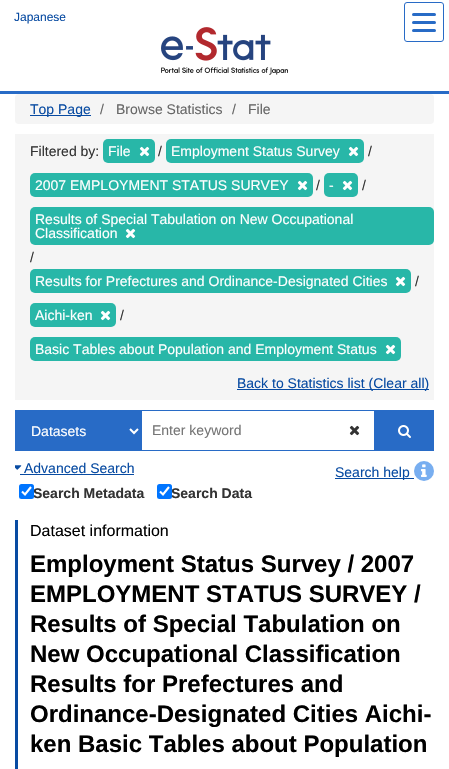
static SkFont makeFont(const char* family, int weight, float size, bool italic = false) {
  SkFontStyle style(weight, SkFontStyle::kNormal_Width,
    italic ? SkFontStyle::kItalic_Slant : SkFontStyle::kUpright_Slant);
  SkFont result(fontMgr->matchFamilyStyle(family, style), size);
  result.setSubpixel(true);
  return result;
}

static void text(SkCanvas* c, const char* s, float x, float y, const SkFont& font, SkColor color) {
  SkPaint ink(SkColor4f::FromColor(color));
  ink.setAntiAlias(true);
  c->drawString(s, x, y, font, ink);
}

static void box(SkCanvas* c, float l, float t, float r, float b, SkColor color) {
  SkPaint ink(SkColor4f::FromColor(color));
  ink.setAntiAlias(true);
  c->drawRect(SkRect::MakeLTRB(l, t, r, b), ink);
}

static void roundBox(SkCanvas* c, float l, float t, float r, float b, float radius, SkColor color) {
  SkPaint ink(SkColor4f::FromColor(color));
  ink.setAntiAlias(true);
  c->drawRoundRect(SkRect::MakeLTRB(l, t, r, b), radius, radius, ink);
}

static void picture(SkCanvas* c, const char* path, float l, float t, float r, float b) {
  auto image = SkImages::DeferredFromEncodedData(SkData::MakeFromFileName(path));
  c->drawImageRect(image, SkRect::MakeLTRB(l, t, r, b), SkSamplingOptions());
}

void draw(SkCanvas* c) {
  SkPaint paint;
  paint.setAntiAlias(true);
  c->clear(0xffffffff);
  paint.setStyle(SkPaint::kStroke_Style);
  paint.setStrokeWidth(1);
  paint.setColor(0xff286bc6);
  c->drawRoundRect(SkRect::MakeLTRB(404.5f, 2.5f, 443.5f, 41.5f), 2.5f, 2.5f, paint);
  roundBox(c, 412, 13, 436, 16, 1.5f, 0xff286bc6);
  roundBox(c, 412, 21, 436, 24, 1.5f, 0xff286bc6);
  roundBox(c, 412, 29, 436, 32, 1.5f, 0xff286bc6);
  SkFont face1 = makeFont("Liberation Sans", 400, 12);
  text(c, "Japanese", 14, 21, face1, 0xff084ba2);
  picture(c, "img_01.png", 161, 27, 288, 75);
  box(c, 0, 91, 449, 94, 0xff286bc6);
  roundBox(c, 15, 94, 434, 124, 4, 0xfff5f5f5);
  box(c, 30, 115, 91, 116, 0xff084ba2);
  SkFont face2 = makeFont("Liberation Sans", 400, 14);
  text(c, "Top Page", 30, 114, face2, 0xff084ba2);
  text(c, "/", 100, 114, face2, 0xff666666);
  text(c, "Browse Statistics", 116, 114, face2, 0xff666666);
  text(c, "/", 232, 114, face2, 0xff666666);
  text(c, "File", 248, 114, face2, 0xff666666);
  box(c, 15, 134, 434, 400, 0xfff5f5f5);
  text(c, "Filtered by:", 30, 156, face2, 0xff333333);
  roundBox(c, 103, 139, 155, 163, 5, 0xff28b7a8);
  text(c, "File", 108, 156, face2, 0xffffffff);
  picture(c, "img_02.png", 139, 146, 150, 157);
  text(c, "/", 158, 156, face2, 0xff333333);
  roundBox(c, 166, 139, 364, 163, 5, 0xff28b7a8);
  text(c, "Employment Status Survey", 171, 156, face2, 0xffffffff);
  picture(c, "img_02.png", 348, 146, 359, 157);
  text(c, "/", 368, 156, face2, 0xff333333);
  roundBox(c, 30, 173, 313, 197, 5, 0xff28b7a8);
  text(c, "2007 EMPLOYMENT STATUS SURVEY", 35, 190, face2, 0xffffffff);
  picture(c, "img_02.png", 297, 180, 308, 191);
  text(c, "/", 316, 190, face2, 0xff333333);
  roundBox(c, 324, 173, 358, 197, 5, 0xff28b7a8);
  text(c, "-", 329, 190, face2, 0xffffffff);
  picture(c, "img_02.png", 342, 180, 353, 191);
  text(c, "/", 362, 190, face2, 0xff333333);
  roundBox(c, 30, 207, 434, 245, 5, 0xff28b7a8);
  text(c, "Results of Special Tabulation on New Occupational", 35, 224, face2, 0xffffffff);
  text(c, "Classification", 35, 238, face2, 0xffffffff);
  picture(c, "img_02.png", 125, 228, 136, 239);
  text(c, "/", 30, 262, face2, 0xff333333);
  roundBox(c, 30, 269, 411, 293, 5, 0xff28b7a8);
  text(c, "Results for Prefectures and Ordinance-Designated Cities", 35, 286, face2, 0xffffffff);
  picture(c, "img_02.png", 395, 276, 406, 287);
  text(c, "/", 415, 286, face2, 0xff333333);
  roundBox(c, 30, 303, 116, 327, 5, 0xff28b7a8);
  text(c, "Aichi-ken", 35, 320, face2, 0xffffffff);
  picture(c, "img_02.png", 100, 310, 111, 321);
  text(c, "/", 120, 320, face2, 0xff333333);
  roundBox(c, 30, 337, 401, 361, 5, 0xff28b7a8);
  text(c, "Basic Tables about Population and Employment Status", 35, 354, face2, 0xffffffff);
  picture(c, "img_02.png", 385, 344, 396, 355);
  box(c, 237, 389, 429, 390, 0xff084ba2);
  text(c, "Back to Statistics list (Clear all)", 237, 388, face2, 0xff084ba2);
  box(c, 15, 410, 434, 411, 0xff286bc6);
  box(c, 15, 410, 16, 451, 0xff286bc6);
  box(c, 16, 411, 142, 451, 0xff286bc6);
  paint.setStrokeWidth(2);
  paint.setColor(0xffffffff);
  c->drawPath(SkPathBuilder().moveTo(130, 429).lineTo(134, 433).lineTo(138, 429).detach(), paint);
  text(c, "Datasets", 31, 436, face2, 0xffffffff);
  box(c, 142, 450, 374, 451, 0xff286bc6);
  text(c, "Enter keyword", 152, 435, face2, 0xff757575);
  picture(c, "img_03.png", 349, 425, 360, 436);
  box(c, 374, 411, 434, 451, 0xff286bc6);
  picture(c, "img_04.png", 398, 425, 411, 438);
  picture(c, "img_05.png", 15, 465, 22, 470);
  text(c, "Advanced Search", 24, 473, face2, 0xff084ba2);
  box(c, 20, 474, 134, 475, 0xff084ba2);
  box(c, 335, 478, 414, 479, 0xff084ba2);
  text(c, "Search help", 335, 477, face2, 0xff084ba2);
  paint.setStyle(SkPaint::kFill_Style);
  paint.setColor(0xff78aef0);
  c->drawCircle(424, 471, 10, paint);
  picture(c, "img_06.png", 421, 464, 427, 477);
  SkFont face3 = makeFont("Liberation Sans", 700, 14);
  text(c, "Search Metadata", 33, 498, face3, 0xff333333);
  roundBox(c, 19, 484, 34, 499, 2.5f, 0xff0075ff);
  paint.setStyle(SkPaint::kStroke_Style);
  paint.setStrokeWidth(2.1f);
  paint.setColor(0xffffffff);
  c->drawPath(SkPathBuilder().moveTo(22, 491.5f).lineTo(25, 494.5f).lineTo(31, 487).detach(), paint);
  text(c, "Search Data", 171, 498, face3, 0xff333333);
  roundBox(c, 157, 484, 172, 499, 2.5f, 0xff0075ff);
  c->drawPath(SkPathBuilder().moveTo(160, 491.5f).lineTo(163, 494.5f).lineTo(169, 487).detach(), paint);
  box(c, 15, 520, 18, 769, 0xff084ba2);
  SkFont face4 = makeFont("Liberation Sans", 400, 16);
  text(c, "Dataset information", 30, 536, face4, 0xff000000);
  SkFont face5 = makeFont("Liberation Sans", 700, 24);
  text(c, "Employment Status Survey / 2007", 30, 572, face5, 0xff000000);
  text(c, "EMPLOYMENT STATUS SURVEY /", 30, 602, face5, 0xff000000);
  text(c, "Results of Special Tabulation on", 30, 632, face5, 0xff000000);
  text(c, "New Occupational Classification", 30, 662, face5, 0xff000000);
  text(c, "Results for Prefectures and", 30, 692, face5, 0xff000000);
  text(c, "Ordinance-Designated Cities Aichi-", 30, 722, face5, 0xff000000);
  text(c, "ken Basic Tables about Population", 30, 752, face5, 0xff000000);
}
